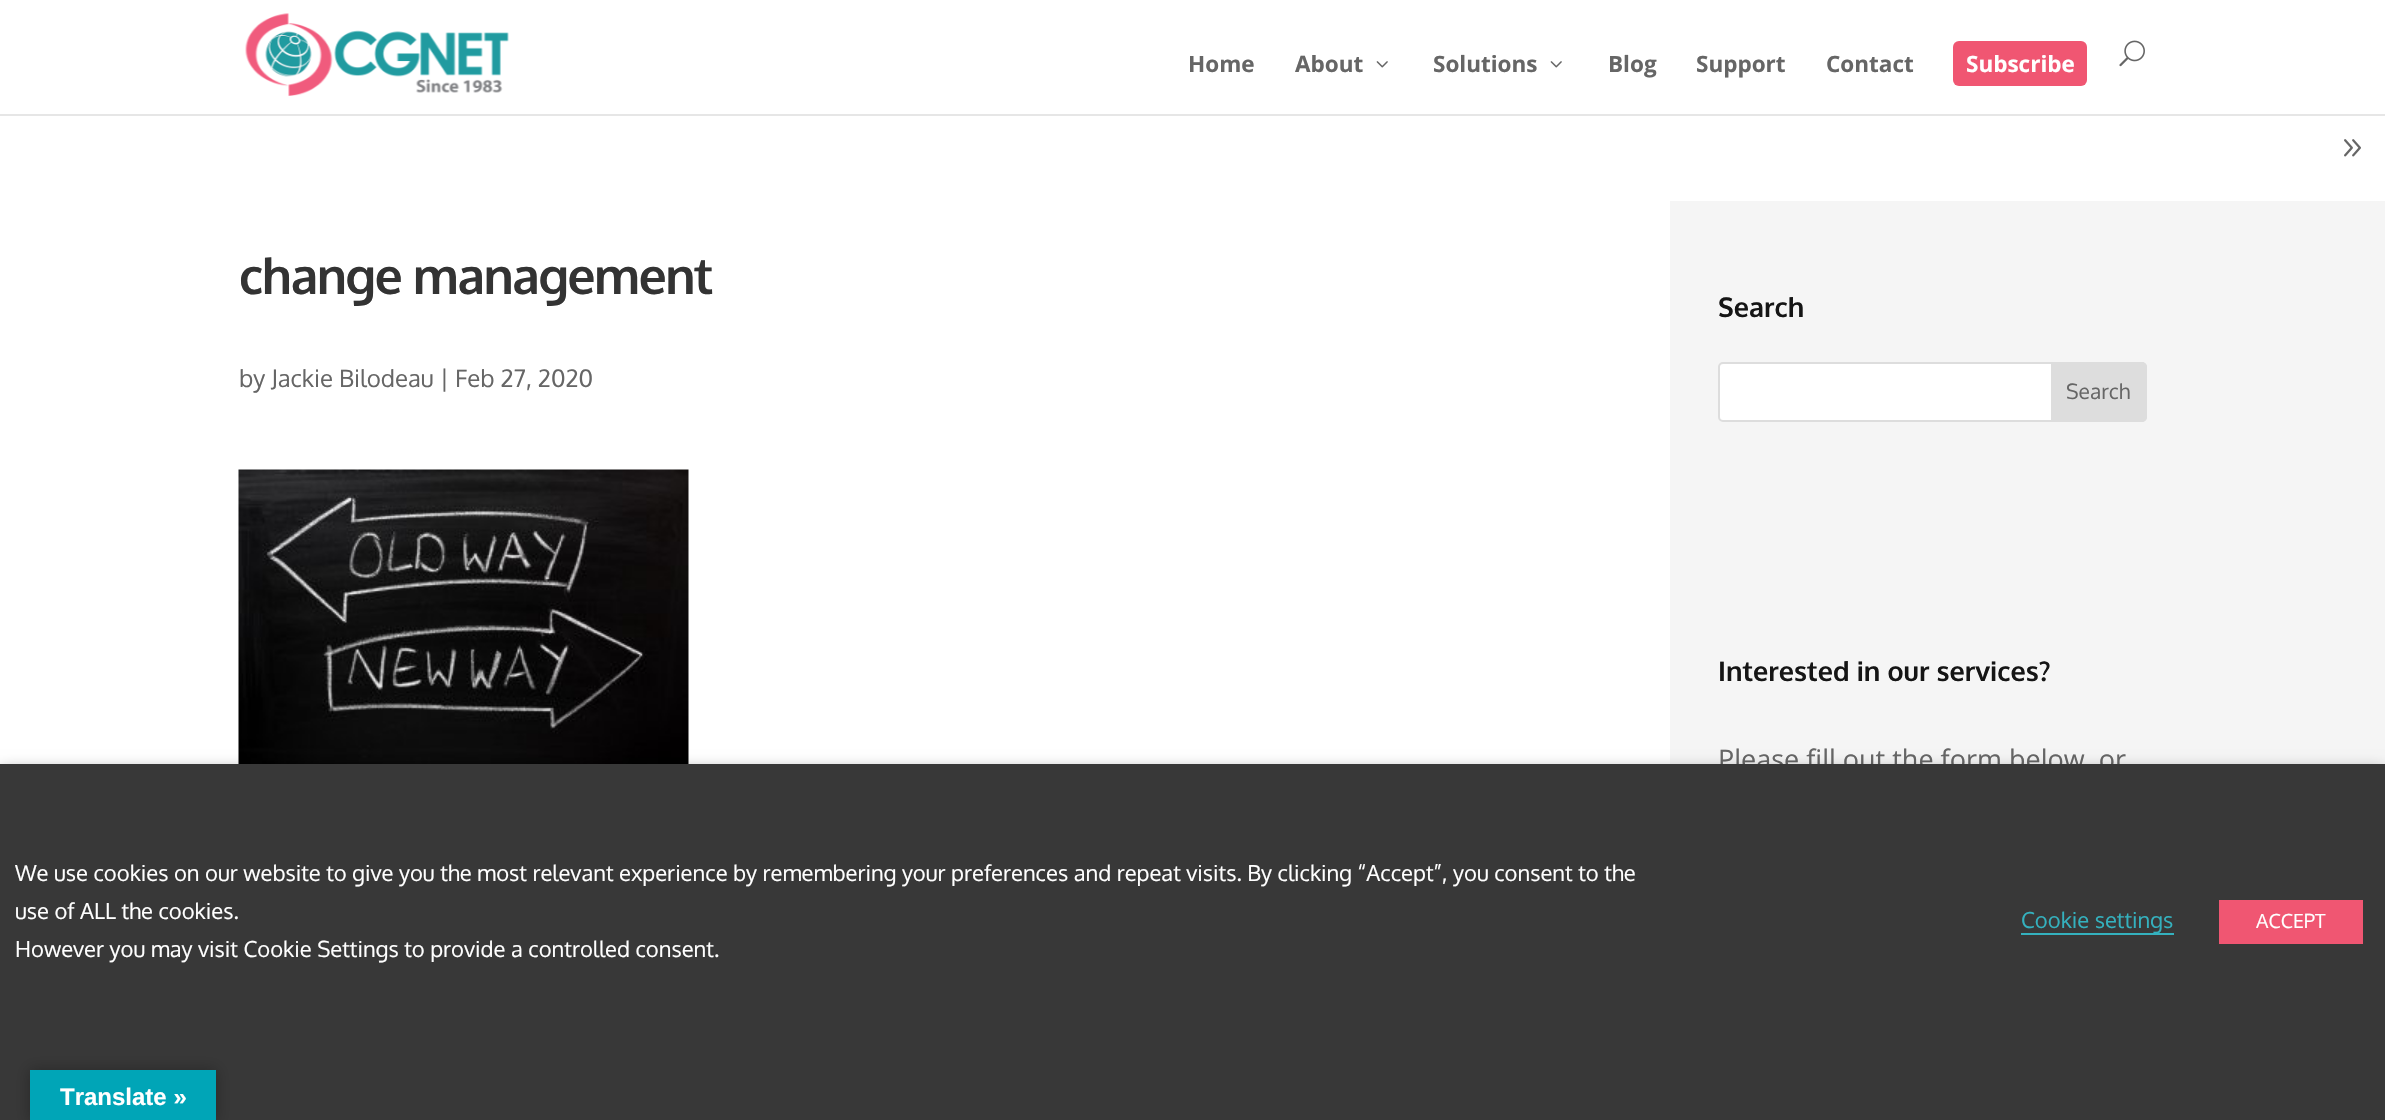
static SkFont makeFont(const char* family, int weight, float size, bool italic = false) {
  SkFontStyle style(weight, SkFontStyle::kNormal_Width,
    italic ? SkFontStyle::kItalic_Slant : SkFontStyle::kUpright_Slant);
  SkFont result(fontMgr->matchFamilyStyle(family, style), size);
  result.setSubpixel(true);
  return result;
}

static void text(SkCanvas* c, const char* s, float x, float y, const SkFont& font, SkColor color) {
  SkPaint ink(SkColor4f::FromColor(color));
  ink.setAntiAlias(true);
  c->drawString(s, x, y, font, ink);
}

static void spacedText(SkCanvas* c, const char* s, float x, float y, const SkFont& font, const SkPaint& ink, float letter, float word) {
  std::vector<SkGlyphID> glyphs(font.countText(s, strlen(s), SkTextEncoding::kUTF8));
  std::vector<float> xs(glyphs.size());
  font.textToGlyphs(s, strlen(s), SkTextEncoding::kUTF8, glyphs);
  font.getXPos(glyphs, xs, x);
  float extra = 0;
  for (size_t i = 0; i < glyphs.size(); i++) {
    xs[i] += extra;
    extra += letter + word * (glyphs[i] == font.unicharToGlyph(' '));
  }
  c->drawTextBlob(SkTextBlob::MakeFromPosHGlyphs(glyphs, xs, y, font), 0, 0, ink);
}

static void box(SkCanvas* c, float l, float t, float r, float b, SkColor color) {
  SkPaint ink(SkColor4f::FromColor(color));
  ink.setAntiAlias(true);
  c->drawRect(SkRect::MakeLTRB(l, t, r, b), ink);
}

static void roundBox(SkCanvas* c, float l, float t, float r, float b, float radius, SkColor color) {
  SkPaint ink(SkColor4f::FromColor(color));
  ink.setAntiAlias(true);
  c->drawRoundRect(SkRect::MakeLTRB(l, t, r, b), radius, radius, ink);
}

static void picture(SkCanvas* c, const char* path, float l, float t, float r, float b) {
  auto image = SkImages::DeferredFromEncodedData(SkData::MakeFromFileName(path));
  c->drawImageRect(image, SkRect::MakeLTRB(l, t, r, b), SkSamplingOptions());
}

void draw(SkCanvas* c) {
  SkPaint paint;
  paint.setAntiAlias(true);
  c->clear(0xffffffff);
  box(c, 0, 114, 2385, 116, 0xffe6e6e6);
  picture(c, "img_01.png", 245, 13, 509, 96);
  SkFont face1 = makeFont("Open Sans", 700, 22.5f);
  text(c, "Home", 1188, 72, face1, 0xff666666);
  text(c, "About", 1295, 72, face1, 0xff666666);
  picture(c, "img_02.png", 1376, 61, 1388, 68);
  text(c, "Solutions", 1433, 72, face1, 0xff666666);
  picture(c, "img_02.png", 1550, 61, 1562, 68);
  text(c, "Blog", 1608, 72, face1, 0xff666666);
  text(c, "Support", 1696, 72, face1, 0xff666666);
  text(c, "Contact", 1826, 72, face1, 0xff666666);
  roundBox(c, 1953, 41, 2087, 86, 6, 0xfff05672);
  text(c, "Subscribe", 1966, 72, face1, 0xffffffff);
  picture(c, "img_03.png", 2119, 40, 2145, 67);
  picture(c, "img_04.png", 2344, 139, 2361, 157);
  SkFont face2 = makeFont("Oxygen", 700, 49.5f);
  paint.setColor(0xff333333);
  spacedText(c, "change management", 239, 294, face2, paint, -1.5f, 0);
  SkFont face3 = makeFont("Oxygen", 400, 24);
  text(c, "by Jackie Bilodeau | Feb 27, 2020", 239, 387, face3, 0xff666666);
  picture(c, "img_05.png", 238, 469, 689, 764);
  box(c, 1670, 201, 2385, 764, 0xfff5f5f5);
  SkFont face4 = makeFont("Oxygen", 700, 27);
  text(c, "Search", 1718, 317, face4, 0xff151515);
  paint.setColor(0xffffffff);
  c->drawRoundRect(SkRect::MakeLTRB(1719, 363, 2146, 421), 4, 4, paint);
  paint.setStyle(SkPaint::kStroke_Style);
  paint.setStrokeWidth(2);
  paint.setColor(0xffdddddd);
  c->drawRoundRect(SkRect::MakeLTRB(1719, 363, 2146, 421), 4, 4, paint);
  paint.setStyle(SkPaint::kFill_Style);
  c->drawPath(SkPathBuilder().moveTo(2052, 363).lineTo(2142, 363).cubicTo(2144, 363, 2146, 365, 2146, 367).lineTo(2146, 417).cubicTo(2146, 419, 2144, 421, 2142, 421).lineTo(2052, 421).close().detach(), paint);
  paint.setStyle(SkPaint::kStroke_Style);
  c->drawPath(SkPathBuilder().moveTo(2052, 363).lineTo(2142, 363).cubicTo(2144, 363, 2146, 365, 2146, 367).lineTo(2146, 417).cubicTo(2146, 419, 2144, 421, 2142, 421).lineTo(2052, 421).close().detach(), paint);
  SkFont face5 = makeFont("Oxygen", 400, 21);
  text(c, "Search", 2066, 399, face5, 0xff666666);
  text(c, "Interested in our services?", 1718, 681, face4, 0xff151515);
  SkFont face6 = makeFont("Open Sans", 400, 27);
  text(c, "Please fill out the form below, or", 1718, 769, face6, 0xff666666);
  paint.setStyle(SkPaint::kFill_Style);
  paint.setColor(0x80000000);
  paint.setMaskFilter(SkMaskFilter::MakeBlur(kNormal_SkBlurStyle, 7.5f));
  c->drawRect(SkRect::MakeLTRB(0, 771, 2385, 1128), paint);
  paint.setMaskFilter(nullptr);
  box(c, 0, 764, 2385, 1120, 0xff383838);
  SkFont face7 = makeFont("Oxygen", 400, 22);
  text(c, "We use cookies on our website to give you the most relevant experience by remembering your preferences and repeat visits. By clicking “Accept”, you consent to the", 15, 881, face7, 0xffffffff);
  text(c, "use of ALL the cookies.", 15, 919, face7, 0xffffffff);
  text(c, "However you may visit Cookie Settings to provide a controlled consent.", 15, 957, face7, 0xffffffff);
  box(c, 2021, 933, 2174, 935, 0xff34b1be);
  text(c, "Cookie settings", 2021, 928, face7, 0xff34b1be);
  box(c, 2219, 900, 2363, 944, 0xfff05672);
  SkFont face8 = makeFont("Oxygen", 400, 19.5f);
  text(c, "ACCEPT", 2256, 928, face8, 0xffffffff);
  paint.setColor(0x4d000000);
  paint.setMaskFilter(SkMaskFilter::MakeBlur(kNormal_SkBlurStyle, 7));
  c->drawRect(SkRect::MakeLTRB(30, 1070, 216, 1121), paint);
  paint.setMaskFilter(nullptr);
  box(c, 30, 1070, 216, 1120, 0xff00a5b7);
  SkFont face9 = makeFont("Liberation Sans", 700, 24);
  text(c, "Translate »", 60, 1105, face9, 0xffffffff);
}
